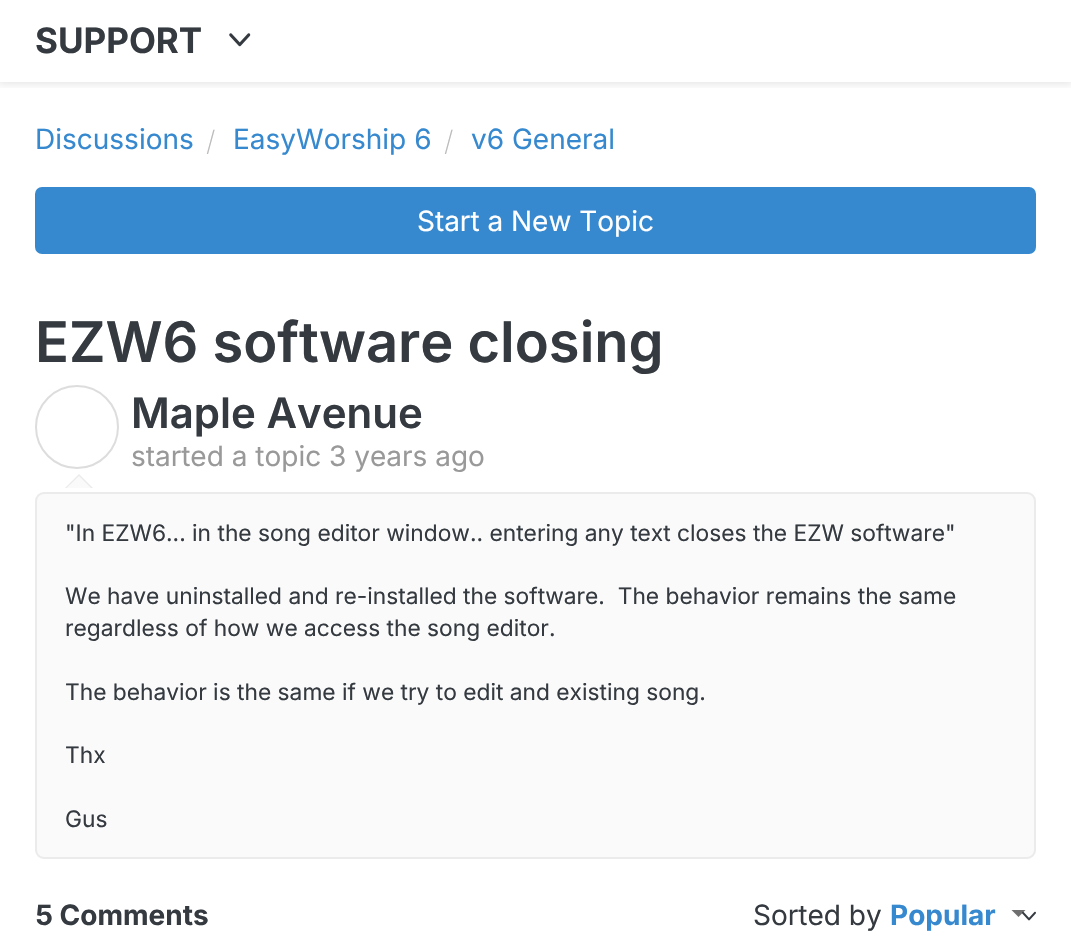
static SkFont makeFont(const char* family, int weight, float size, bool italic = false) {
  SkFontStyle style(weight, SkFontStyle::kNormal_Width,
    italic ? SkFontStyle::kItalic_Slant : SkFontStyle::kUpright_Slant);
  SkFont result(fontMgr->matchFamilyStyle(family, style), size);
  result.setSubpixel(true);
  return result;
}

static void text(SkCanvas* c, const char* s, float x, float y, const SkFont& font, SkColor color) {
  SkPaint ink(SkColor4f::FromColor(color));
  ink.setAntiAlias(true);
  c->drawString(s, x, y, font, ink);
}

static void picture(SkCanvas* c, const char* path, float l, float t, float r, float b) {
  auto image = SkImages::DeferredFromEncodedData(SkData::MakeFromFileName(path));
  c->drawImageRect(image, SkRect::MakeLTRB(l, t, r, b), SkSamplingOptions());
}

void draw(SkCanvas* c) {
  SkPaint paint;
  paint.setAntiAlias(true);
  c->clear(0xffffffff);
  c->save();
  c->clipRect(SkRect::MakeLTRB(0, 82, 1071, 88));
  paint.setColor(0x1a000000);
  paint.setMaskFilter(SkMaskFilter::MakeBlur(kNormal_SkBlurStyle, 4.5f));
  c->drawRect(SkRect::MakeLTRB(-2, -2, 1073, 84), paint);
  paint.setMaskFilter(nullptr);
  c->restore();
  SkFont face1 = makeFont("Inter", 700, 35);
  text(c, "SUPPORT", 35, 53, face1, 0xff343a40);
  picture(c, "img_01.png", 229, 33, 251, 47);
  SkFont face2 = makeFont("Inter", 400, 28);
  text(c, "Discussions", 35, 149, face2, 0xff3689cf);
  SkFont face3 = makeFont("Inter", 200, 28);
  text(c, "/", 206, 151, face3, 0xffbbbbbb);
  text(c, "EasyWorship 6", 233, 149, face2, 0xff3689cf);
  text(c, "/", 444, 151, face3, 0xffbbbbbb);
  text(c, "v6 General", 471, 149, face2, 0xff3689cf);
  paint.setColor(0xff3689cf);
  c->drawRoundRect(SkRect::MakeLTRB(36, 188, 1035, 253), 6, 6, paint);
  paint.setStyle(SkPaint::kStroke_Style);
  paint.setStrokeWidth(2);
  c->drawRoundRect(SkRect::MakeLTRB(36, 188, 1035, 253), 6, 6, paint);
  text(c, "Start a New Topic", 417, 231, face2, 0xffffffff);
  SkFont face4 = makeFont("Inter", 600, 56);
  text(c, "EZW6 software closing", 35, 362, face4, 0xff343a40);
  paint.setColor(0xffdddddd);
  c->drawCircle(77, 427, 41, paint);
  paint.setStyle(SkPaint::kFill_Style);
  paint.setColor(0xffebebeb);
  c->drawPath(SkPathBuilder().moveTo(93, 488).lineTo(65, 488).lineTo(79, 474).close().detach(), paint);
  paint.setColor(0xfffafafa);
  c->drawPath(SkPathBuilder().moveTo(91, 488).lineTo(66.5f, 488).lineTo(79, 476).close().detach(), paint);
  SkFont face5 = makeFont("Inter", 600, 42);
  text(c, "Maple Avenue", 131, 428, face5, 0xff343a40);
  text(c, "started a topic 3 years ago", 131, 466, face2, 0xff999999);
  c->drawRoundRect(SkRect::MakeLTRB(36, 493, 1035, 858), 8, 8, paint);
  paint.setStyle(SkPaint::kStroke_Style);
  paint.setColor(0xffebebeb);
  c->drawRoundRect(SkRect::MakeLTRB(36, 493, 1035, 858), 8, 8, paint);
  SkFont face6 = makeFont("Inter", 400, 22.75f);
  text(c, "\"In EZW6... in the song editor window.. entering any text closes the EZW software\"", 65, 541, face6, 0xff343a40);
  text(c, "We have uninstalled and re-installed the software.  The behavior remains the same", 65, 604, face6, 0xff343a40);
  text(c, "regardless of how we access the song editor.", 65, 636, face6, 0xff343a40);
  text(c, "The behavior is the same if we try to edit and existing song.", 65, 700, face6, 0xff343a40);
  text(c, "Thx", 65, 763, face6, 0xff343a40);
  text(c, "Gus", 65, 827, face6, 0xff343a40);
  SkFont face7 = makeFont("Inter", 700, 28);
  text(c, "5 Comments", 35, 925, face7, 0xff343a40);
  text(c, "Sorted by", 753, 925, face2, 0xff343a40);
  text(c, "Popular", 890, 925, face7, 0xff3689cf);
  paint.setStyle(SkPaint::kFill_Style);
  paint.setColor(0xff6f6f6f);
  c->drawPath(SkPathBuilder().moveTo(1011.5f, 910).lineTo(1025.5f, 910).lineTo(1018.5f, 917).close().detach(), paint);
  picture(c, "img_02.png", 1022, 911, 1036, 921);
}
